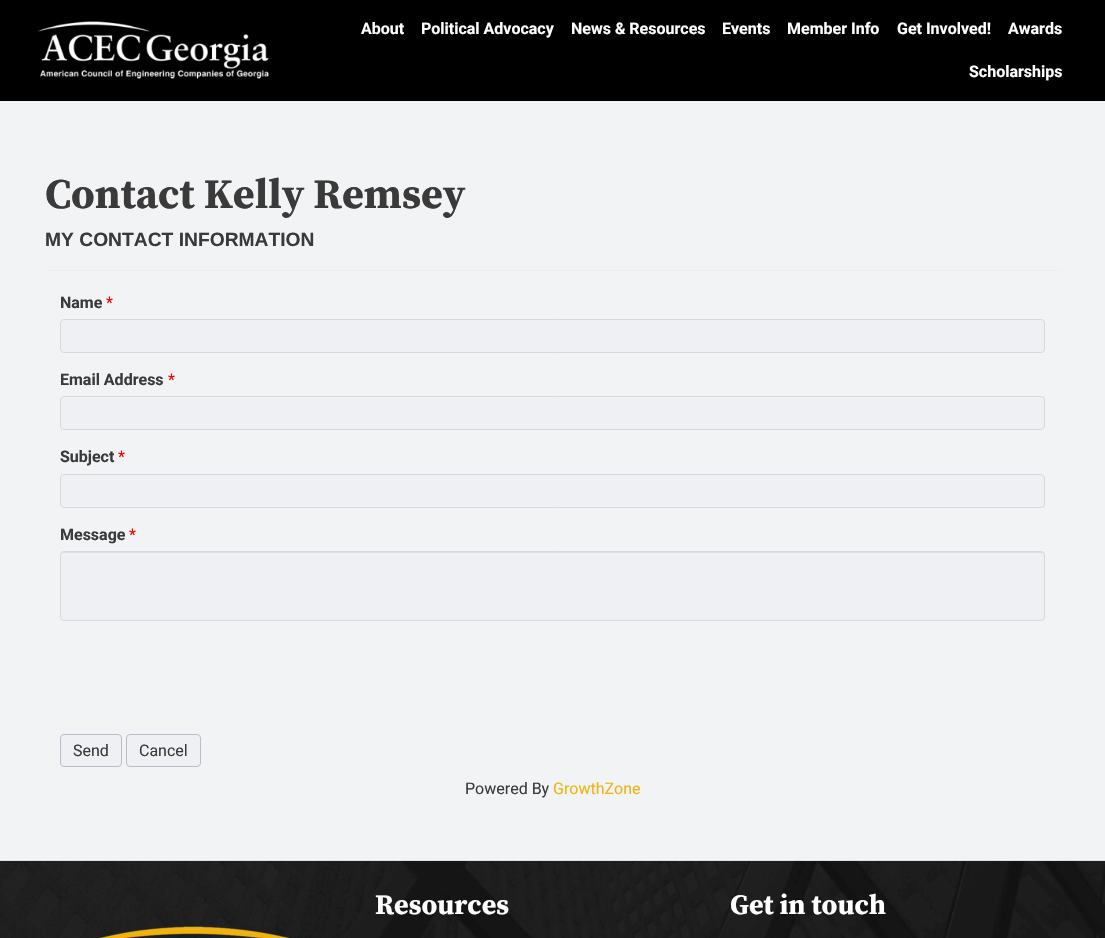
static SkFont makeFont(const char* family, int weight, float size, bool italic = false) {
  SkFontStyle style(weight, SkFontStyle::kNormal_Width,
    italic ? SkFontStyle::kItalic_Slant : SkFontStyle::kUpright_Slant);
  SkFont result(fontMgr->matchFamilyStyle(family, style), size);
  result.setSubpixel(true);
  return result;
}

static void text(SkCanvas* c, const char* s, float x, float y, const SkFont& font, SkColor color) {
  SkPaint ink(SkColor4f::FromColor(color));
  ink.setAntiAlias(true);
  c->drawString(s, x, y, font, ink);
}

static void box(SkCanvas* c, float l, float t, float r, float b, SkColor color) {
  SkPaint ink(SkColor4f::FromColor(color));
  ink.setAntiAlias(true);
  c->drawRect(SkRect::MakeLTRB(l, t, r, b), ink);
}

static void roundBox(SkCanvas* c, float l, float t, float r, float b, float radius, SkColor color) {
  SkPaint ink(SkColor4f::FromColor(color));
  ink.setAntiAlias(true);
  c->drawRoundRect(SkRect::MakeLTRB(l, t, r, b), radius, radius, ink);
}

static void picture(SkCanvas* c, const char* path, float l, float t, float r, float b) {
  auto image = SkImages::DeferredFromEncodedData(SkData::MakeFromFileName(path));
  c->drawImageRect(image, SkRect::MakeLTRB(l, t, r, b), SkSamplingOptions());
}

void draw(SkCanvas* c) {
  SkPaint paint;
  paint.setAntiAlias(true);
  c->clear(0xfff2f3f5);
  box(c, 0, 0, 1105, 101, 0xff000000);
  picture(c, "img_01.png", 38, 21, 269, 79);
  SkFont face1 = makeFont("Roboto", 700, 16);
  text(c, "About", 361, 34, face1, 0xffffffff);
  text(c, "Political Advocacy", 421, 34, face1, 0xffffffff);
  text(c, "News & Resources", 571, 34, face1, 0xffffffff);
  text(c, "Events", 722, 34, face1, 0xffffffff);
  text(c, "Member Info", 787, 34, face1, 0xffffffff);
  text(c, "Get Involved!", 897, 34, face1, 0xffffffff);
  text(c, "Awards", 1008, 34, face1, 0xffffffff);
  text(c, "Scholarships", 969, 77, face1, 0xffffffff);
  SkFont face2 = makeFont("Source Serif Pro", 700, 42);
  text(c, "Contact Kelly Remsey", 45, 208, face2, 0xff3a3a3a);
  SkFont face3 = makeFont("Liberation Sans", 700, 19.25f);
  text(c, "MY CONTACT INFORMATION", 45, 246, face3, 0xff3a3a3a);
  box(c, 45, 270, 1060, 271, 0xffeeeeee);
  text(c, "Name", 60, 308, face1, 0xff3a3a3a);
  SkFont face4 = makeFont("Roboto", 400, 16);
  text(c, "*", 106, 308, face4, 0xffff0000);
  paint.setColor(0xffeff0f3);
  c->drawRoundRect(SkRect::MakeLTRB(60.5f, 319.5f, 1044.5f, 352.5f), 3.5f, 3.5f, paint);
  paint.setStyle(SkPaint::kStroke_Style);
  paint.setStrokeWidth(1);
  paint.setColor(0xffd5d8df);
  c->drawRoundRect(SkRect::MakeLTRB(60.5f, 319.5f, 1044.5f, 352.5f), 3.5f, 3.5f, paint);
  text(c, "Email Address", 60, 385, face1, 0xff3a3a3a);
  text(c, "*", 168, 385, face4, 0xffff0000);
  paint.setStyle(SkPaint::kFill_Style);
  paint.setColor(0xffeff0f3);
  c->drawRoundRect(SkRect::MakeLTRB(60.5f, 396.5f, 1044.5f, 429.5f), 3.5f, 3.5f, paint);
  paint.setStyle(SkPaint::kStroke_Style);
  paint.setColor(0xffd5d8df);
  c->drawRoundRect(SkRect::MakeLTRB(60.5f, 396.5f, 1044.5f, 429.5f), 3.5f, 3.5f, paint);
  text(c, "Subject", 60, 462, face1, 0xff3a3a3a);
  text(c, "*", 118, 462, face4, 0xffff0000);
  paint.setStyle(SkPaint::kFill_Style);
  paint.setColor(0xffeff0f3);
  c->drawRoundRect(SkRect::MakeLTRB(60.5f, 474.5f, 1044.5f, 507.5f), 3.5f, 3.5f, paint);
  paint.setStyle(SkPaint::kStroke_Style);
  paint.setColor(0xffd5d8df);
  c->drawRoundRect(SkRect::MakeLTRB(60.5f, 474.5f, 1044.5f, 507.5f), 3.5f, 3.5f, paint);
  text(c, "Message", 60, 540, face1, 0xff3a3a3a);
  text(c, "*", 129, 540, face4, 0xffff0000);
  roundBox(c, 60, 551, 1045, 621, 4, 0xffeff0f3);
  paint.setStyle(SkPaint::kFill_Style);
  paint.setColor(0xffdddee1);
  c->drawPath(SkPathBuilder().moveTo(64, 553).lineTo(1041, 553).cubicTo(1043, 553, 1044, 554, 1044, 556).cubicTo(1044, 554, 1043, 552, 1041, 552).lineTo(64, 552).cubicTo(62, 552, 61, 554, 61, 556).cubicTo(61, 554, 62, 553, 64, 553).close().detach(), paint);
  paint.setStyle(SkPaint::kStroke_Style);
  paint.setColor(0xffd5d8df);
  c->drawRoundRect(SkRect::MakeLTRB(60.5f, 551.5f, 1044.5f, 620.5f), 3.5f, 3.5f, paint);
  paint.setStyle(SkPaint::kFill_Style);
  paint.setColor(0xffeff0f3);
  c->drawRoundRect(SkRect::MakeLTRB(60.5f, 734.5f, 121.5f, 766.5f), 3.5f, 3.5f, paint);
  paint.setStyle(SkPaint::kStroke_Style);
  paint.setColor(0xffb8bec9);
  c->drawRoundRect(SkRect::MakeLTRB(60.5f, 734.5f, 121.5f, 766.5f), 3.5f, 3.5f, paint);
  text(c, "Send", 73, 756, face4, 0xff3a3a3a);
  paint.setStyle(SkPaint::kFill_Style);
  paint.setColor(0xffeff0f3);
  c->drawRoundRect(SkRect::MakeLTRB(126.5f, 734.5f, 200.5f, 766.5f), 3.5f, 3.5f, paint);
  paint.setStyle(SkPaint::kStroke_Style);
  paint.setColor(0xffb8bec9);
  c->drawRoundRect(SkRect::MakeLTRB(126.5f, 734.5f, 200.5f, 766.5f), 3.5f, 3.5f, paint);
  text(c, "Cancel", 139, 756, face4, 0xff3a3a3a);
  text(c, "Powered By", 465, 794, face4, 0xff3a3a3a);
  text(c, "GrowthZone", 553, 794, face4, 0xfff0b310);
  picture(c, "img_02.png", 0, 861, 1105, 938);
  box(c, 0, 860, 1105, 861, 0xffe2e2e2);
  SkFont face5 = makeFont("Source Serif Pro", 700, 28);
  text(c, "Resources", 375, 914, face5, 0xffffffff);
  text(c, "Get in touch", 730, 914, face5, 0xffffffff);
  picture(c, "img_03.png", 99, 926, 290, 938);
}
